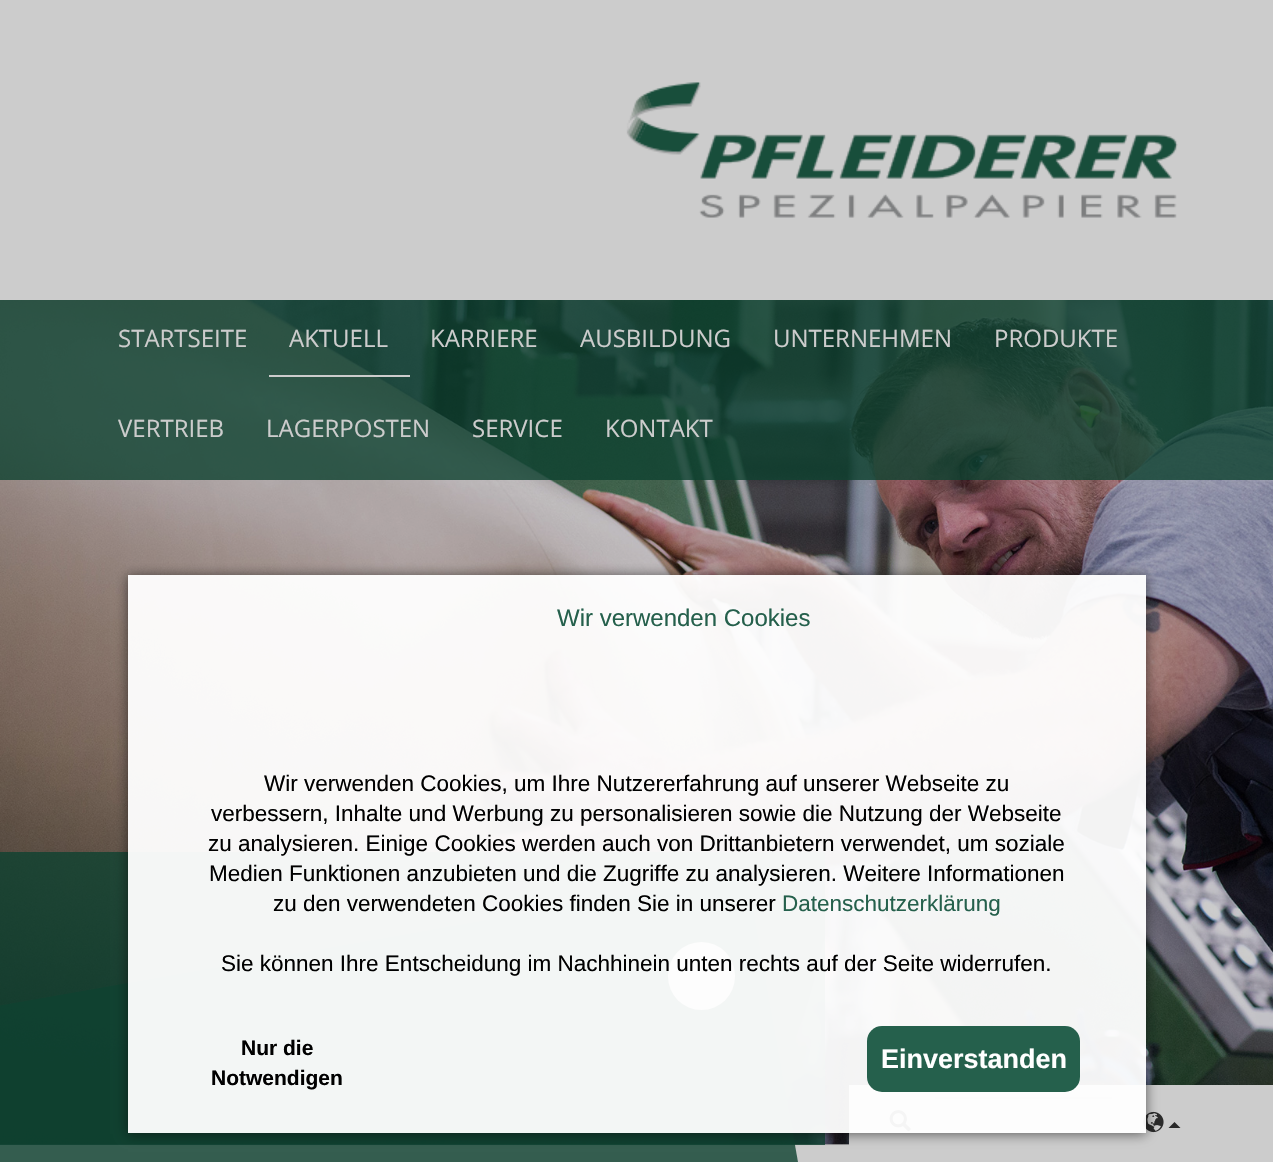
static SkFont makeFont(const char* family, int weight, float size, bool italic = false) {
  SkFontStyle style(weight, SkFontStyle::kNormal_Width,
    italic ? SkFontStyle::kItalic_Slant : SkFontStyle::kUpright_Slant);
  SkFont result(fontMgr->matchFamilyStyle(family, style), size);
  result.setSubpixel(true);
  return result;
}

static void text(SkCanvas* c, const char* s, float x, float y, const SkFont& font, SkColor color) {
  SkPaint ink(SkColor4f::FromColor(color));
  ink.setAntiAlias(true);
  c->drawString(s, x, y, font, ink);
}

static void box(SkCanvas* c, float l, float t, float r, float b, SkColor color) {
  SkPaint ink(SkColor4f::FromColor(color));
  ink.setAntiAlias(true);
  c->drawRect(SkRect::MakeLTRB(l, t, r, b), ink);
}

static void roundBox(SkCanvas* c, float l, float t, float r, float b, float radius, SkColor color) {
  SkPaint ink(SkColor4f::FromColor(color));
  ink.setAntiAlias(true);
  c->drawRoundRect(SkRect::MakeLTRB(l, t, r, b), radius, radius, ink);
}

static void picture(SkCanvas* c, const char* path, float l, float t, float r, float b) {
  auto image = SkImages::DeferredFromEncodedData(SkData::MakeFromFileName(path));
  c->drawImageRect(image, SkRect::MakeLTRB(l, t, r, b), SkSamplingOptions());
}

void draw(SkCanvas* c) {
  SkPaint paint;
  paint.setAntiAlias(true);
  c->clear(0xffcccccc);
  picture(c, "img_01.png", 626, 82, 1178, 218);
  box(c, 0, 1144, 849, 1145, 0xffb3b3b3);
  picture(c, "img_02.png", 0, 300, 1273, 1145);
  box(c, 0, 300, 1273, 480, 0xcc0e4130);
  SkFont face1 = makeFont("Open Sans", 400, 24);
  text(c, "STARTSEITE", 118, 347, face1, 0xffcccccc);
  box(c, 269, 375, 410, 377, 0xffcccccc);
  text(c, "AKTUELL", 289, 347, face1, 0xffcccccc);
  text(c, "KARRIERE", 430, 347, face1, 0xffcccccc);
  text(c, "AUSBILDUNG", 580, 347, face1, 0xffcccccc);
  text(c, "UNTERNEHMEN", 773, 347, face1, 0xffcccccc);
  text(c, "PRODUKTE", 994, 347, face1, 0xffcccccc);
  text(c, "VERTRIEB", 118, 437, face1, 0xffcccccc);
  text(c, "LAGERPOSTEN", 266, 437, face1, 0xffcccccc);
  text(c, "SERVICE", 472, 437, face1, 0xffcccccc);
  text(c, "KONTAKT", 605, 437, face1, 0xffcccccc);
  box(c, 0, 852, 825, 1145, 0xcc0e4130);
  paint.setColor(0xcc0e4130);
  c->drawPath(SkPathBuilder().moveTo(-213, 1043).lineTo(747, 874).lineTo(798, 1162).lineTo(-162, 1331).close().detach(), paint);
  roundBox(c, 668, 942, 735, 1010, 33.5f, 0xffcccccc);
  box(c, 849, 1085, 1273, 1145, 0xffcccccc);
  box(c, 935, 1097, 1112, 1099, 0xffbdbdbd);
  picture(c, "img_03.png", 889, 1110, 911, 1132);
  picture(c, "img_04.png", 1143, 1111, 1164, 1133);
  paint.setColor(0xff292929);
  c->drawPath(SkPathBuilder().moveTo(1180.5f, 1128).lineTo(1168.5f, 1128).lineTo(1174.5f, 1122).close().detach(), paint);
  c->save();
  c->clipPath(SkPathBuilder(SkPathFillType::kEvenOdd).moveTo(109, 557).lineTo(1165, 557).lineTo(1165, 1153).lineTo(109, 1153).close().moveTo(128, 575).lineTo(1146, 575).lineTo(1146, 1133).lineTo(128, 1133).close().detach(), true);
  paint.setColor(0x990a0a0a);
  paint.setMaskFilter(SkMaskFilter::MakeBlur(kNormal_SkBlurStyle, 6));
  c->drawRect(SkRect::MakeLTRB(128, 576, 1146, 1134), paint);
  paint.setMaskFilter(nullptr);
  c->restore();
  box(c, 128, 575, 1146, 1133, 0xf2ffffff);
  SkFont face2 = makeFont("Liberation Sans", 400, 24);
  text(c, "Wir verwenden Cookies", 557, 626, face2, 0xff25604c);
  SkFont face3 = makeFont("Liberation Sans", 400, 22.5f);
  text(c, "Wir verwenden Cookies, um Ihre Nutzererfahrung auf unserer Webseite zu", 264, 791, face3, 0xff000000);
  text(c, "verbessern, Inhalte und Werbung zu personalisieren sowie die Nutzung der Webseite", 211, 821, face3, 0xff000000);
  text(c, "zu analysieren. Einige Cookies werden auch von Drittanbietern verwendet, um soziale", 208, 851, face3, 0xff000000);
  text(c, "Medien Funktionen anzubieten und die Zugriffe zu analysieren. Weitere Informationen", 209, 881, face3, 0xff000000);
  text(c, "zu den verwendeten Cookies finden Sie in unserer", 273, 911, face3, 0xff000000);
  text(c, "Datenschutzerklärung", 782, 911, face3, 0xff25604c);
  text(c, "Sie können Ihre Entscheidung im Nachhinein unten rechts auf der Seite widerrufen.", 221, 971, face3, 0xff000000);
  SkFont face4 = makeFont("Liberation Sans", 700, 21);
  text(c, "Nur die", 241, 1055, face4, 0xff000000);
  text(c, "Notwendigen", 211, 1085, face4, 0xff000000);
  roundBox(c, 867, 1026, 1080, 1092, 15, 0xff25604c);
  SkFont face5 = makeFont("Liberation Sans", 700, 27);
  text(c, "Einverstanden", 881, 1068, face5, 0xffffffff);
}
